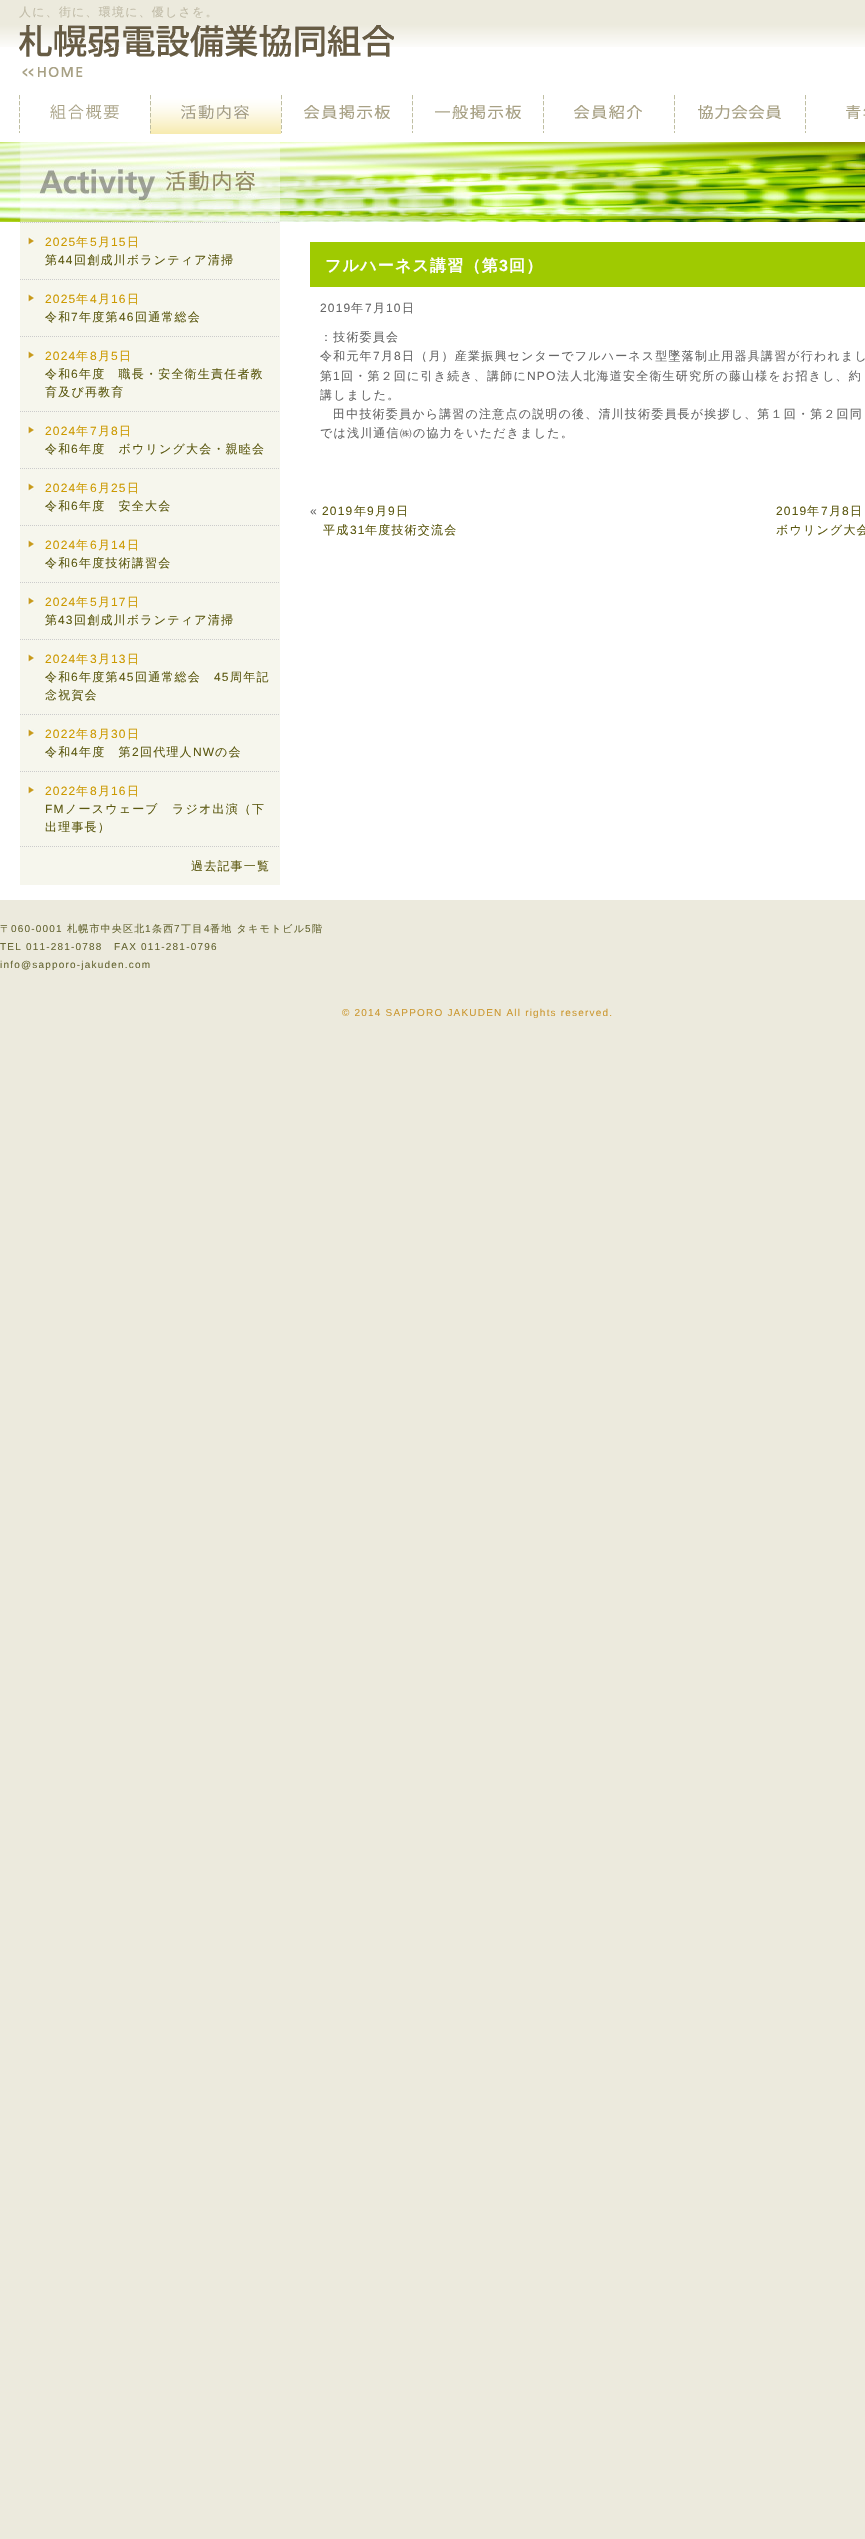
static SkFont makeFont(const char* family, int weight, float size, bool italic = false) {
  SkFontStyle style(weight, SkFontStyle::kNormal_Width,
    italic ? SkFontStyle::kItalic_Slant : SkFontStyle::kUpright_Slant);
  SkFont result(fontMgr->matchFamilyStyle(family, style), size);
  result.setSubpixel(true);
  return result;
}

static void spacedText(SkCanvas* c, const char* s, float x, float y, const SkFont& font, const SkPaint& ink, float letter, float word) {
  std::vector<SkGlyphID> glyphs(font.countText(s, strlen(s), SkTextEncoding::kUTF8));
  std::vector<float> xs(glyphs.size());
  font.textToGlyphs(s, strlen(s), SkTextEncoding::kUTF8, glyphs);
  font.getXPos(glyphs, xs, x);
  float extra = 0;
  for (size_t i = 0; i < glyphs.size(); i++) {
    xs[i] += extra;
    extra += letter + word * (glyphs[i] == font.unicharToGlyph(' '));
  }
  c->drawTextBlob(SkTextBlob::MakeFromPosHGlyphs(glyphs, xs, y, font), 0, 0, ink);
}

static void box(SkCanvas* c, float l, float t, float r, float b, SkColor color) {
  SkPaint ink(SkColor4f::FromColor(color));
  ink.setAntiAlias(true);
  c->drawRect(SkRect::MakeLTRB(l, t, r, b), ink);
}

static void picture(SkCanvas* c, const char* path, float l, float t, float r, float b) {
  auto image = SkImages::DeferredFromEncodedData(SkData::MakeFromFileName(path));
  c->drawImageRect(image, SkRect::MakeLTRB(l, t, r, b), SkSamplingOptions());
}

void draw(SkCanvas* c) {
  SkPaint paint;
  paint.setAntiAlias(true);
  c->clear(0xffeceadd);
  box(c, 0, 47, 865, 900, 0xffffffff);
  picture(c, "img_01.png", 0, 3, 865, 47);
  SkFont face1 = makeFont("WenQuanYi Zen Hei", 500, 12);
  paint.setColor(0xffc1bca8);
  spacedText(c, "人に、街に、環境に、優しさを。", 19, 16, face1, paint, 1.2f, 0);
  picture(c, "img_02.png", 19, 25, 394, 77);
  picture(c, "img_03.png", 19, 95, 20, 133);
  picture(c, "img_04.png", 50, 104, 119, 120);
  picture(c, "img_05.png", 150, 95, 281, 134);
  picture(c, "img_06.png", 181, 105, 249, 119);
  picture(c, "img_03.png", 281, 95, 282, 133);
  picture(c, "img_07.png", 304, 105, 390, 119);
  picture(c, "img_03.png", 412, 95, 413, 133);
  picture(c, "img_08.png", 435, 105, 521, 119);
  picture(c, "img_03.png", 543, 95, 544, 133);
  picture(c, "img_09.png", 574, 105, 642, 119);
  picture(c, "img_03.png", 674, 95, 675, 133);
  picture(c, "img_10.png", 698, 105, 781, 119);
  picture(c, "img_03.png", 805, 95, 806, 133);
  picture(c, "img_11.png", 846, 105, 865, 119);
  picture(c, "img_12.png", 0, 142, 865, 222);
  box(c, 20, 222, 280, 885, 0xfff6f6ed);
  picture(c, "img_13.png", 27, 236, 34, 246);
  paint.setStyle(SkPaint::kStroke_Style);
  paint.setStrokeWidth(1);
  paint.setColor(0xffcccccc);
  paint.setPathEffect(SkDashPathEffect::Make({{1, 1}}, 0));
  c->drawPath(SkPathBuilder().moveTo(20, 222.5f).lineTo(280, 222.5f).detach(), paint);
  paint.setPathEffect(nullptr);
  SkFont face2 = makeFont("Liberation Sans", 400, 12);
  paint.setStyle(SkPaint::kFill_Style);
  paint.setColor(0xffcc9900);
  spacedText(c, "2025", 45, 246, face2, paint, 1.2f, 0);
  spacedText(c, "年", 76, 246, face1, paint, 1.2f, 0);
  spacedText(c, "5", 90, 246, face2, paint, 1.2f, 0);
  spacedText(c, "月", 98, 246, face1, paint, 1.2f, 0);
  spacedText(c, "15", 111, 246, face2, paint, 1.2f, 0);
  spacedText(c, "日", 127, 246, face1, paint, 1.2f, 0);
  paint.setColor(0xff5c5911);
  spacedText(c, "第", 45, 264, face1, paint, 1.2f, 0);
  spacedText(c, "44", 58, 264, face2, paint, 1.2f, 0);
  spacedText(c, "回創成川ボランティア清掃", 74, 264, face1, paint, 1.2f, 0);
  picture(c, "img_13.png", 27, 293, 34, 303);
  paint.setStyle(SkPaint::kStroke_Style);
  paint.setColor(0xffcccccc);
  paint.setPathEffect(SkDashPathEffect::Make({{1, 1}}, 0));
  c->drawPath(SkPathBuilder().moveTo(20, 279.5f).lineTo(280, 279.5f).detach(), paint);
  paint.setPathEffect(nullptr);
  paint.setStyle(SkPaint::kFill_Style);
  paint.setColor(0xffcc9900);
  spacedText(c, "2025", 45, 303, face2, paint, 1.2f, 0);
  spacedText(c, "年", 76, 303, face1, paint, 1.2f, 0);
  spacedText(c, "4", 90, 303, face2, paint, 1.2f, 0);
  spacedText(c, "月", 98, 303, face1, paint, 1.2f, 0);
  spacedText(c, "16", 111, 303, face2, paint, 1.2f, 0);
  spacedText(c, "日", 127, 303, face1, paint, 1.2f, 0);
  paint.setColor(0xff5c5911);
  spacedText(c, "令和", 45, 321, face1, paint, 1.2f, 0);
  spacedText(c, "7", 71, 321, face2, paint, 1.2f, 0);
  spacedText(c, "年度第", 79, 321, face1, paint, 1.2f, 0);
  spacedText(c, "46", 119, 321, face2, paint, 1.2f, 0);
  spacedText(c, "回通常総会", 135, 321, face1, paint, 1.2f, 0);
  picture(c, "img_13.png", 27, 350, 34, 360);
  paint.setStyle(SkPaint::kStroke_Style);
  paint.setColor(0xffcccccc);
  paint.setPathEffect(SkDashPathEffect::Make({{1, 1}}, 0));
  c->drawPath(SkPathBuilder().moveTo(20, 336.5f).lineTo(280, 336.5f).detach(), paint);
  paint.setPathEffect(nullptr);
  paint.setStyle(SkPaint::kFill_Style);
  paint.setColor(0xffcc9900);
  spacedText(c, "2024", 45, 360, face2, paint, 1.2f, 0);
  spacedText(c, "年", 76, 360, face1, paint, 1.2f, 0);
  spacedText(c, "8", 90, 360, face2, paint, 1.2f, 0);
  spacedText(c, "月", 98, 360, face1, paint, 1.2f, 0);
  spacedText(c, "5", 111, 360, face2, paint, 1.2f, 0);
  spacedText(c, "日", 119, 360, face1, paint, 1.2f, 0);
  paint.setColor(0xff5c5911);
  spacedText(c, "令和", 45, 378, face1, paint, 1.2f, 0);
  spacedText(c, "6", 71, 378, face2, paint, 1.2f, 0);
  spacedText(c, "年度　職長・安全衛生責任者教", 79, 378, face1, paint, 1.2f, 0);
  spacedText(c, "育及び再教育", 45, 396, face1, paint, 1.2f, 0);
  picture(c, "img_13.png", 27, 425, 34, 435);
  paint.setStyle(SkPaint::kStroke_Style);
  paint.setColor(0xffcccccc);
  paint.setPathEffect(SkDashPathEffect::Make({{1, 1}}, 0));
  c->drawPath(SkPathBuilder().moveTo(20, 411.5f).lineTo(280, 411.5f).detach(), paint);
  paint.setPathEffect(nullptr);
  paint.setStyle(SkPaint::kFill_Style);
  paint.setColor(0xffcc9900);
  spacedText(c, "2024", 45, 435, face2, paint, 1.2f, 0);
  spacedText(c, "年", 76, 435, face1, paint, 1.2f, 0);
  spacedText(c, "7", 90, 435, face2, paint, 1.2f, 0);
  spacedText(c, "月", 98, 435, face1, paint, 1.2f, 0);
  spacedText(c, "8", 111, 435, face2, paint, 1.2f, 0);
  spacedText(c, "日", 119, 435, face1, paint, 1.2f, 0);
  paint.setColor(0xff5c5911);
  spacedText(c, "令和", 45, 453, face1, paint, 1.2f, 0);
  spacedText(c, "6", 71, 453, face2, paint, 1.2f, 0);
  spacedText(c, "年度　ボウリング大会・親睦会", 79, 453, face1, paint, 1.2f, 0);
  picture(c, "img_13.png", 27, 482, 34, 492);
  paint.setStyle(SkPaint::kStroke_Style);
  paint.setColor(0xffcccccc);
  paint.setPathEffect(SkDashPathEffect::Make({{1, 1}}, 0));
  c->drawPath(SkPathBuilder().moveTo(20, 468.5f).lineTo(280, 468.5f).detach(), paint);
  paint.setPathEffect(nullptr);
  paint.setStyle(SkPaint::kFill_Style);
  paint.setColor(0xffcc9900);
  spacedText(c, "2024", 45, 492, face2, paint, 1.2f, 0);
  spacedText(c, "年", 76, 492, face1, paint, 1.2f, 0);
  spacedText(c, "6", 90, 492, face2, paint, 1.2f, 0);
  spacedText(c, "月", 98, 492, face1, paint, 1.2f, 0);
  spacedText(c, "25", 111, 492, face2, paint, 1.2f, 0);
  spacedText(c, "日", 127, 492, face1, paint, 1.2f, 0);
  paint.setColor(0xff5c5911);
  spacedText(c, "令和", 45, 510, face1, paint, 1.2f, 0);
  spacedText(c, "6", 71, 510, face2, paint, 1.2f, 0);
  spacedText(c, "年度　安全大会", 79, 510, face1, paint, 1.2f, 0);
  picture(c, "img_13.png", 27, 539, 34, 549);
  paint.setStyle(SkPaint::kStroke_Style);
  paint.setColor(0xffcccccc);
  paint.setPathEffect(SkDashPathEffect::Make({{1, 1}}, 0));
  c->drawPath(SkPathBuilder().moveTo(20, 525.5f).lineTo(280, 525.5f).detach(), paint);
  paint.setPathEffect(nullptr);
  paint.setStyle(SkPaint::kFill_Style);
  paint.setColor(0xffcc9900);
  spacedText(c, "2024", 45, 549, face2, paint, 1.2f, 0);
  spacedText(c, "年", 76, 549, face1, paint, 1.2f, 0);
  spacedText(c, "6", 90, 549, face2, paint, 1.2f, 0);
  spacedText(c, "月", 98, 549, face1, paint, 1.2f, 0);
  spacedText(c, "14", 111, 549, face2, paint, 1.2f, 0);
  spacedText(c, "日", 127, 549, face1, paint, 1.2f, 0);
  paint.setColor(0xff5c5911);
  spacedText(c, "令和", 45, 567, face1, paint, 1.2f, 0);
  spacedText(c, "6", 71, 567, face2, paint, 1.2f, 0);
  spacedText(c, "年度技術講習会", 79, 567, face1, paint, 1.2f, 0);
  picture(c, "img_13.png", 27, 596, 34, 606);
  paint.setStyle(SkPaint::kStroke_Style);
  paint.setColor(0xffcccccc);
  paint.setPathEffect(SkDashPathEffect::Make({{1, 1}}, 0));
  c->drawPath(SkPathBuilder().moveTo(20, 582.5f).lineTo(280, 582.5f).detach(), paint);
  paint.setPathEffect(nullptr);
  paint.setStyle(SkPaint::kFill_Style);
  paint.setColor(0xffcc9900);
  spacedText(c, "2024", 45, 606, face2, paint, 1.2f, 0);
  spacedText(c, "年", 76, 606, face1, paint, 1.2f, 0);
  spacedText(c, "5", 90, 606, face2, paint, 1.2f, 0);
  spacedText(c, "月", 98, 606, face1, paint, 1.2f, 0);
  spacedText(c, "17", 111, 606, face2, paint, 1.2f, 0);
  spacedText(c, "日", 127, 606, face1, paint, 1.2f, 0);
  paint.setColor(0xff5c5911);
  spacedText(c, "第", 45, 624, face1, paint, 1.2f, 0);
  spacedText(c, "43", 58, 624, face2, paint, 1.2f, 0);
  spacedText(c, "回創成川ボランティア清掃", 74, 624, face1, paint, 1.2f, 0);
  picture(c, "img_13.png", 27, 653, 34, 663);
  paint.setStyle(SkPaint::kStroke_Style);
  paint.setColor(0xffcccccc);
  paint.setPathEffect(SkDashPathEffect::Make({{1, 1}}, 0));
  c->drawPath(SkPathBuilder().moveTo(20, 639.5f).lineTo(280, 639.5f).detach(), paint);
  paint.setPathEffect(nullptr);
  paint.setStyle(SkPaint::kFill_Style);
  paint.setColor(0xffcc9900);
  spacedText(c, "2024", 45, 663, face2, paint, 1.2f, 0);
  spacedText(c, "年", 76, 663, face1, paint, 1.2f, 0);
  spacedText(c, "3", 90, 663, face2, paint, 1.2f, 0);
  spacedText(c, "月", 98, 663, face1, paint, 1.2f, 0);
  spacedText(c, "13", 111, 663, face2, paint, 1.2f, 0);
  spacedText(c, "日", 127, 663, face1, paint, 1.2f, 0);
  paint.setColor(0xff5c5911);
  spacedText(c, "令和", 45, 681, face1, paint, 1.2f, 0);
  spacedText(c, "6", 71, 681, face2, paint, 1.2f, 0);
  spacedText(c, "年度第", 79, 681, face1, paint, 1.2f, 0);
  spacedText(c, "45", 119, 681, face2, paint, 1.2f, 0);
  spacedText(c, "回通常総会", 135, 681, face1, paint, 1.2f, 0);
  spacedText(c, "45", 214, 681, face2, paint, 1.2f, 0);
  spacedText(c, "周年記", 230, 681, face1, paint, 1.2f, 0);
  spacedText(c, "念祝賀会", 45, 699, face1, paint, 1.2f, 0);
  picture(c, "img_13.png", 27, 728, 34, 738);
  paint.setStyle(SkPaint::kStroke_Style);
  paint.setColor(0xffcccccc);
  paint.setPathEffect(SkDashPathEffect::Make({{1, 1}}, 0));
  c->drawPath(SkPathBuilder().moveTo(20, 714.5f).lineTo(280, 714.5f).detach(), paint);
  paint.setPathEffect(nullptr);
  paint.setStyle(SkPaint::kFill_Style);
  paint.setColor(0xffcc9900);
  spacedText(c, "2022", 45, 738, face2, paint, 1.2f, 0);
  spacedText(c, "年", 76, 738, face1, paint, 1.2f, 0);
  spacedText(c, "8", 90, 738, face2, paint, 1.2f, 0);
  spacedText(c, "月", 98, 738, face1, paint, 1.2f, 0);
  spacedText(c, "30", 111, 738, face2, paint, 1.2f, 0);
  spacedText(c, "日", 127, 738, face1, paint, 1.2f, 0);
  paint.setColor(0xff5c5911);
  spacedText(c, "令和", 45, 756, face1, paint, 1.2f, 0);
  spacedText(c, "4", 71, 756, face2, paint, 1.2f, 0);
  spacedText(c, "年度　第", 79, 756, face1, paint, 1.2f, 0);
  spacedText(c, "2", 132, 756, face2, paint, 1.2f, 0);
  spacedText(c, "回代理人", 140, 756, face1, paint, 1.2f, 0);
  spacedText(c, "NW", 193, 756, face2, paint, 1.2f, 0);
  spacedText(c, "の会", 215, 756, face1, paint, 1.2f, 0);
  picture(c, "img_13.png", 27, 785, 34, 795);
  paint.setStyle(SkPaint::kStroke_Style);
  paint.setColor(0xffcccccc);
  paint.setPathEffect(SkDashPathEffect::Make({{1, 1}}, 0));
  c->drawPath(SkPathBuilder().moveTo(20, 771.5f).lineTo(280, 771.5f).detach(), paint);
  paint.setPathEffect(nullptr);
  paint.setStyle(SkPaint::kFill_Style);
  paint.setColor(0xffcc9900);
  spacedText(c, "2022", 45, 795, face2, paint, 1.2f, 0);
  spacedText(c, "年", 76, 795, face1, paint, 1.2f, 0);
  spacedText(c, "8", 90, 795, face2, paint, 1.2f, 0);
  spacedText(c, "月", 98, 795, face1, paint, 1.2f, 0);
  spacedText(c, "16", 111, 795, face2, paint, 1.2f, 0);
  spacedText(c, "日", 127, 795, face1, paint, 1.2f, 0);
  paint.setColor(0xff5c5911);
  spacedText(c, "FM", 45, 813, face2, paint, 1.2f, 0);
  spacedText(c, "ノースウェーブ　ラジオ出演（下", 65, 813, face1, paint, 1.2f, 0);
  spacedText(c, "出理事長）", 45, 831, face1, paint, 1.2f, 0);
  paint.setStyle(SkPaint::kStroke_Style);
  paint.setColor(0xffcccccc);
  paint.setPathEffect(SkDashPathEffect::Make({{1, 1}}, 0));
  c->drawPath(SkPathBuilder().moveTo(20, 846.5f).lineTo(280, 846.5f).detach(), paint);
  paint.setPathEffect(nullptr);
  paint.setStyle(SkPaint::kFill_Style);
  paint.setColor(0xff5c5911);
  spacedText(c, "過去記事一覧", 191, 870, face1, paint, 1.2f, 0);
  box(c, 310, 242, 865, 287, 0xff9fca01);
  SkFont face3 = makeFont("WenQuanYi Zen Hei", 700, 16);
  paint.setColor(0xffffffff);
  spacedText(c, "フルハーネス講習（第", 325, 271, face3, paint, 1.2f, 0);
  SkFont face4 = makeFont("Liberation Sans", 700, 16);
  spacedText(c, "3", 499, 271, face4, paint, 1.2f, 0);
  spacedText(c, "回）", 509, 271, face3, paint, 1.2f, 0);
  paint.setColor(0xff666666);
  spacedText(c, "2019", 320, 312, face2, paint, 1.2f, 0);
  spacedText(c, "年", 351, 312, face1, paint, 1.2f, 0);
  spacedText(c, "7", 365, 312, face2, paint, 1.2f, 0);
  spacedText(c, "月", 373, 312, face1, paint, 1.2f, 0);
  spacedText(c, "10", 386, 312, face2, paint, 1.2f, 0);
  spacedText(c, "日", 402, 312, face1, paint, 1.2f, 0);
  spacedText(c, "：技術委員会", 320, 341, face1, paint, 1.2f, 0);
  spacedText(c, "令和元年", 320, 360, face1, paint, 1.2f, 0);
  spacedText(c, "7", 373, 360, face2, paint, 1.2f, 0);
  spacedText(c, "月", 381, 360, face1, paint, 1.2f, 0);
  spacedText(c, "8", 394, 360, face2, paint, 1.2f, 0);
  spacedText(c, "日（月）産業振興センターでフルハーネス型墜落制止用器具講習が行われまし", 402, 360, face1, paint, 1.2f, 0);
  spacedText(c, "第", 320, 380, face1, paint, 1.2f, 0);
  spacedText(c, "1", 333, 380, face2, paint, 1.2f, 0);
  spacedText(c, "回・第２回に引き続き、講師に", 341, 380, face1, paint, 1.2f, 0);
  spacedText(c, "NPO", 527, 380, face2, paint, 1.2f, 0);
  spacedText(c, "法人北海道安全衛生研究所の藤山様をお招きし、約", 557, 380, face1, paint, 1.2f, 0);
  spacedText(c, "講しました。", 320, 399, face1, paint, 1.2f, 0);
  spacedText(c, "田中技術委員から講習の注意点の説明の後、清川技術委員長が挨拶し、第１回・第２回同", 333, 418, face1, paint, 1.2f, 0);
  spacedText(c, "では浅川通信㈱の協力をいただきました。", 320, 437, face1, paint, 1.2f, 0);
  spacedText(c, "«", 310, 515, face2, paint, 1.2f, 0);
  paint.setColor(0xff5c5911);
  spacedText(c, "2019", 322, 515, face2, paint, 1.2f, 0);
  spacedText(c, "年", 354, 515, face1, paint, 1.2f, 0);
  spacedText(c, "9", 367, 515, face2, paint, 1.2f, 0);
  spacedText(c, "月", 375, 515, face1, paint, 1.2f, 0);
  spacedText(c, "9", 388, 515, face2, paint, 1.2f, 0);
  spacedText(c, "日", 396, 515, face1, paint, 1.2f, 0);
  spacedText(c, "平成", 323, 534, face1, paint, 1.2f, 0);
  spacedText(c, "31", 350, 534, face2, paint, 1.2f, 0);
  spacedText(c, "年度技術交流会", 365, 534, face1, paint, 1.2f, 0);
  spacedText(c, "2019", 776, 515, face2, paint, 1.2f, 0);
  spacedText(c, "年", 807, 515, face1, paint, 1.2f, 0);
  spacedText(c, "7", 821, 515, face2, paint, 1.2f, 0);
  spacedText(c, "月", 829, 515, face1, paint, 1.2f, 0);
  spacedText(c, "8", 842, 515, face2, paint, 1.2f, 0);
  spacedText(c, "日", 850, 515, face1, paint, 1.2f, 0);
  spacedText(c, "ボウリング大会", 776, 534, face1, paint, 1.2f, 0);
  SkFont face5 = makeFont("WenQuanYi Zen Hei", 500, 10);
  paint.setColor(0xff666633);
  spacedText(c, "〒", 0, 932, face5, paint, 1.2f, 0);
  SkFont face6 = makeFont("Liberation Sans", 400, 10);
  spacedText(c, "060-0001", 11, 932, face6, paint, 1.2f, 0);
  spacedText(c, "札幌市中央区北", 67, 932, face5, paint, 1.2f, 0);
  spacedText(c, "1", 145, 932, face6, paint, 1.2f, 0);
  spacedText(c, "条西", 152, 932, face5, paint, 1.2f, 0);
  spacedText(c, "7", 174, 932, face6, paint, 1.2f, 0);
  spacedText(c, "丁目", 181, 932, face5, paint, 1.2f, 0);
  spacedText(c, "4", 204, 932, face6, paint, 1.2f, 0);
  spacedText(c, "番地 タキモトビル", 210, 932, face5, paint, 1.2f, 0);
  spacedText(c, "5", 305, 932, face6, paint, 1.2f, 0);
  spacedText(c, "階", 312, 932, face5, paint, 1.2f, 0);
  spacedText(c, "TEL 011-281-0788", 0, 950, face6, paint, 1.2f, 0);
  spacedText(c, "FAX 011-281-0796", 114, 950, face6, paint, 1.2f, 0);
  spacedText(c, "info@sapporo-jakuden.com", 0, 968, face6, paint, 1.2f, 0);
  paint.setColor(0xffcc9933);
  spacedText(c, "© 2014 SAPPORO JAKUDEN All rights reserved.", 342, 1016, face6, paint, 1.2f, 0);
}
